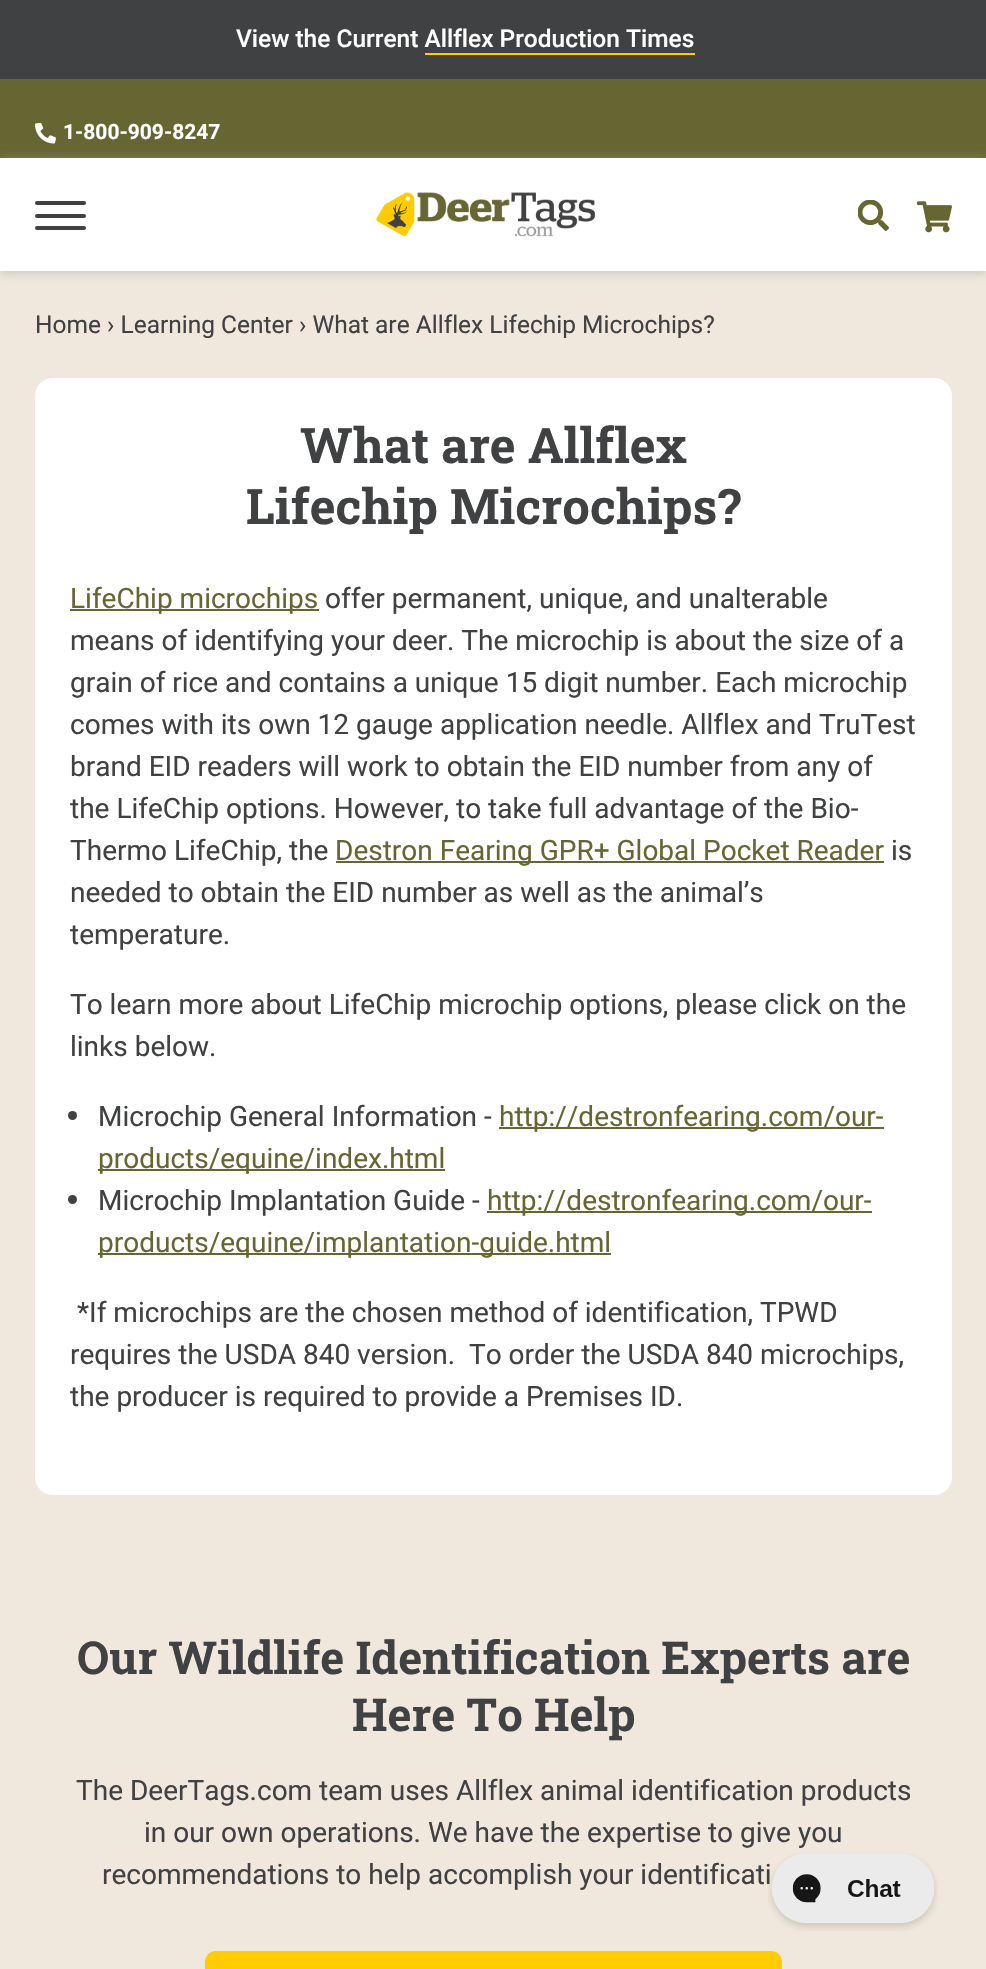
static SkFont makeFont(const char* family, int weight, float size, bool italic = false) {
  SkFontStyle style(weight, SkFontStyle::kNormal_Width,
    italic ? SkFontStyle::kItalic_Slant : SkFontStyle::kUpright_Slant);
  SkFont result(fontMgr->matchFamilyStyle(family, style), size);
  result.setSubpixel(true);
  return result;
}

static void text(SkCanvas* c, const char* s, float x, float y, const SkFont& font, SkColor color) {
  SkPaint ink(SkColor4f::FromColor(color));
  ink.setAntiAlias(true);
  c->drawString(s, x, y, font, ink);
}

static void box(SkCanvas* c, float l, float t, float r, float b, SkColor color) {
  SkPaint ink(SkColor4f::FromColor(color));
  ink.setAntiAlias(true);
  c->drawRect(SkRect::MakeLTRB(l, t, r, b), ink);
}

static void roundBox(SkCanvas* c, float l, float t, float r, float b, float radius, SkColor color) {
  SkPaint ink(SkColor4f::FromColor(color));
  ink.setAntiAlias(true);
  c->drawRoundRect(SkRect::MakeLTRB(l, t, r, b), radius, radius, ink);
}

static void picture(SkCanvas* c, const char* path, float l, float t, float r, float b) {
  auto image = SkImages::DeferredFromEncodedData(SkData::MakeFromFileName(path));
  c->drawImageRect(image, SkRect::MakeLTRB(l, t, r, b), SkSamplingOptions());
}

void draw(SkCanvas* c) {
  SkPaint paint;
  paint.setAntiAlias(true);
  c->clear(0xfff0e8dc);
  box(c, 0, 0, 986, 79, 0xff404142);
  SkFont face1 = makeFont("Roboto", 500, 24.5f);
  text(c, "View the Current Allflex Production Times", 236, 47, face1, 0xffffffff);
  box(c, 425, 53, 695, 55, 0xffffcc00);
  box(c, 0, 79, 986, 158, 0xff666633);
  picture(c, "img_01.png", 35, 123, 56, 144);
  SkFont face2 = makeFont("Roboto", 700, 21);
  text(c, "1-800-909-8247", 63, 139, face2, 0xffffffff);
  paint.setColor(0x829fa0a0);
  paint.setMaskFilter(SkMaskFilter::MakeBlur(kNormal_SkBlurStyle, 5));
  c->drawRect(SkRect::MakeLTRB(0, 159, 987, 273), paint);
  paint.setMaskFilter(nullptr);
  box(c, 0, 158, 986, 271, 0xffffffff);
  roundBox(c, 35, 214, 86, 218, 2, 0xff404142);
  roundBox(c, 35, 201, 86, 205, 2, 0xff404142);
  roundBox(c, 35, 226, 86, 230, 2, 0xff404142);
  picture(c, "img_02.png", 376, 192, 595, 237);
  picture(c, "img_03.png", 858, 200, 889, 231);
  picture(c, "img_04.png", 917, 201, 952, 233);
  SkFont face3 = makeFont("Roboto", 400, 24.5f);
  text(c, "Home › Learning Center › What are Allflex Lifechip Microchips?", 35, 333, face3, 0xff404142);
  roundBox(c, 35, 378, 952, 1495, 18, 0xffffffff);
  SkFont face4 = makeFont("Roboto Slab", 700, 49);
  text(c, "What are Allflex", 300, 463, face4, 0xff404142);
  text(c, "Lifechip Microchips?", 246, 524, face4, 0xff404142);
  box(c, 70, 609, 319, 611, 0xff666633);
  SkFont face5 = makeFont("Roboto", 400, 28);
  text(c, "LifeChip microchips", 70, 608, face5, 0xff666633);
  text(c, "offer permanent, unique, and unalterable", 325, 608, face5, 0xff404142);
  text(c, "means of identifying your deer. The microchip is about the size of a", 70, 650, face5, 0xff404142);
  text(c, "grain of rice and contains a unique 15 digit number. Each microchip", 70, 692, face5, 0xff404142);
  text(c, "comes with its own 12 gauge application needle. Allflex and TruTest", 70, 734, face5, 0xff404142);
  text(c, "brand EID readers will work to obtain the EID number from any of", 70, 776, face5, 0xff404142);
  text(c, "the LifeChip options. However, to take full advantage of the Bio-", 70, 818, face5, 0xff404142);
  text(c, "Thermo LifeChip, the", 70, 860, face5, 0xff404142);
  box(c, 336, 861, 884, 863, 0xff666633);
  text(c, "Destron Fearing GPR+ Global Pocket Reader", 335, 860, face5, 0xff666633);
  text(c, "is", 891, 860, face5, 0xff404142);
  text(c, "needed to obtain the EID number as well as the animal’s", 70, 902, face5, 0xff404142);
  text(c, "temperature.", 70, 944, face5, 0xff404142);
  text(c, "To learn more about LifeChip microchip options, please click on the", 70, 1014, face5, 0xff404142);
  text(c, "links below.", 70, 1056, face5, 0xff404142);
  paint.setColor(0xff404142);
  c->drawCircle(72.5f, 1115.5f, 4.5f, paint);
  text(c, "Microchip General Information -", 98, 1126, face5, 0xff404142);
  box(c, 499, 1127, 884, 1129, 0xff666633);
  text(c, "http://destronfearing.com/our-", 499, 1126, face5, 0xff666633);
  box(c, 98, 1169, 445, 1171, 0xff666633);
  text(c, "products/equine/index.html", 98, 1168, face5, 0xff666633);
  c->drawCircle(72.5f, 1199.5f, 4.5f, paint);
  text(c, "Microchip Implantation Guide -", 98, 1210, face5, 0xff404142);
  box(c, 487, 1211, 872, 1213, 0xff666633);
  text(c, "http://destronfearing.com/our-", 487, 1210, face5, 0xff666633);
  box(c, 98, 1253, 611, 1255, 0xff666633);
  text(c, "products/equine/implantation-guide.html", 98, 1252, face5, 0xff666633);
  text(c, "*If microchips are the chosen method of identification, TPWD", 77, 1322, face5, 0xff404142);
  text(c, "requires the USDA 840 version.  To order the USDA 840 microchips,", 70, 1364, face5, 0xff404142);
  text(c, "the producer is required to provide a Premises ID.", 70, 1406, face5, 0xff404142);
  SkFont face6 = makeFont("Roboto Slab", 700, 45.5f);
  text(c, "Our Wildlife Identification Experts are", 77, 1674, face6, 0xff404142);
  text(c, "Here To Help", 352, 1731, face6, 0xff404142);
  text(c, "The DeerTags.com team uses Allflex animal identification products", 76, 1800, face5, 0xff404142);
  text(c, "in our own operations. We have the expertise to give you", 144, 1842, face5, 0xff404142);
  text(c, "recommendations to help accomplish your identificati", 102, 1884, face5, 0xff404142);
  roundBox(c, 205, 1951, 782, 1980, 11, 0xffffcc00);
  picture(c, "img_05.png", 768, 1853, 938, 1931);
}
